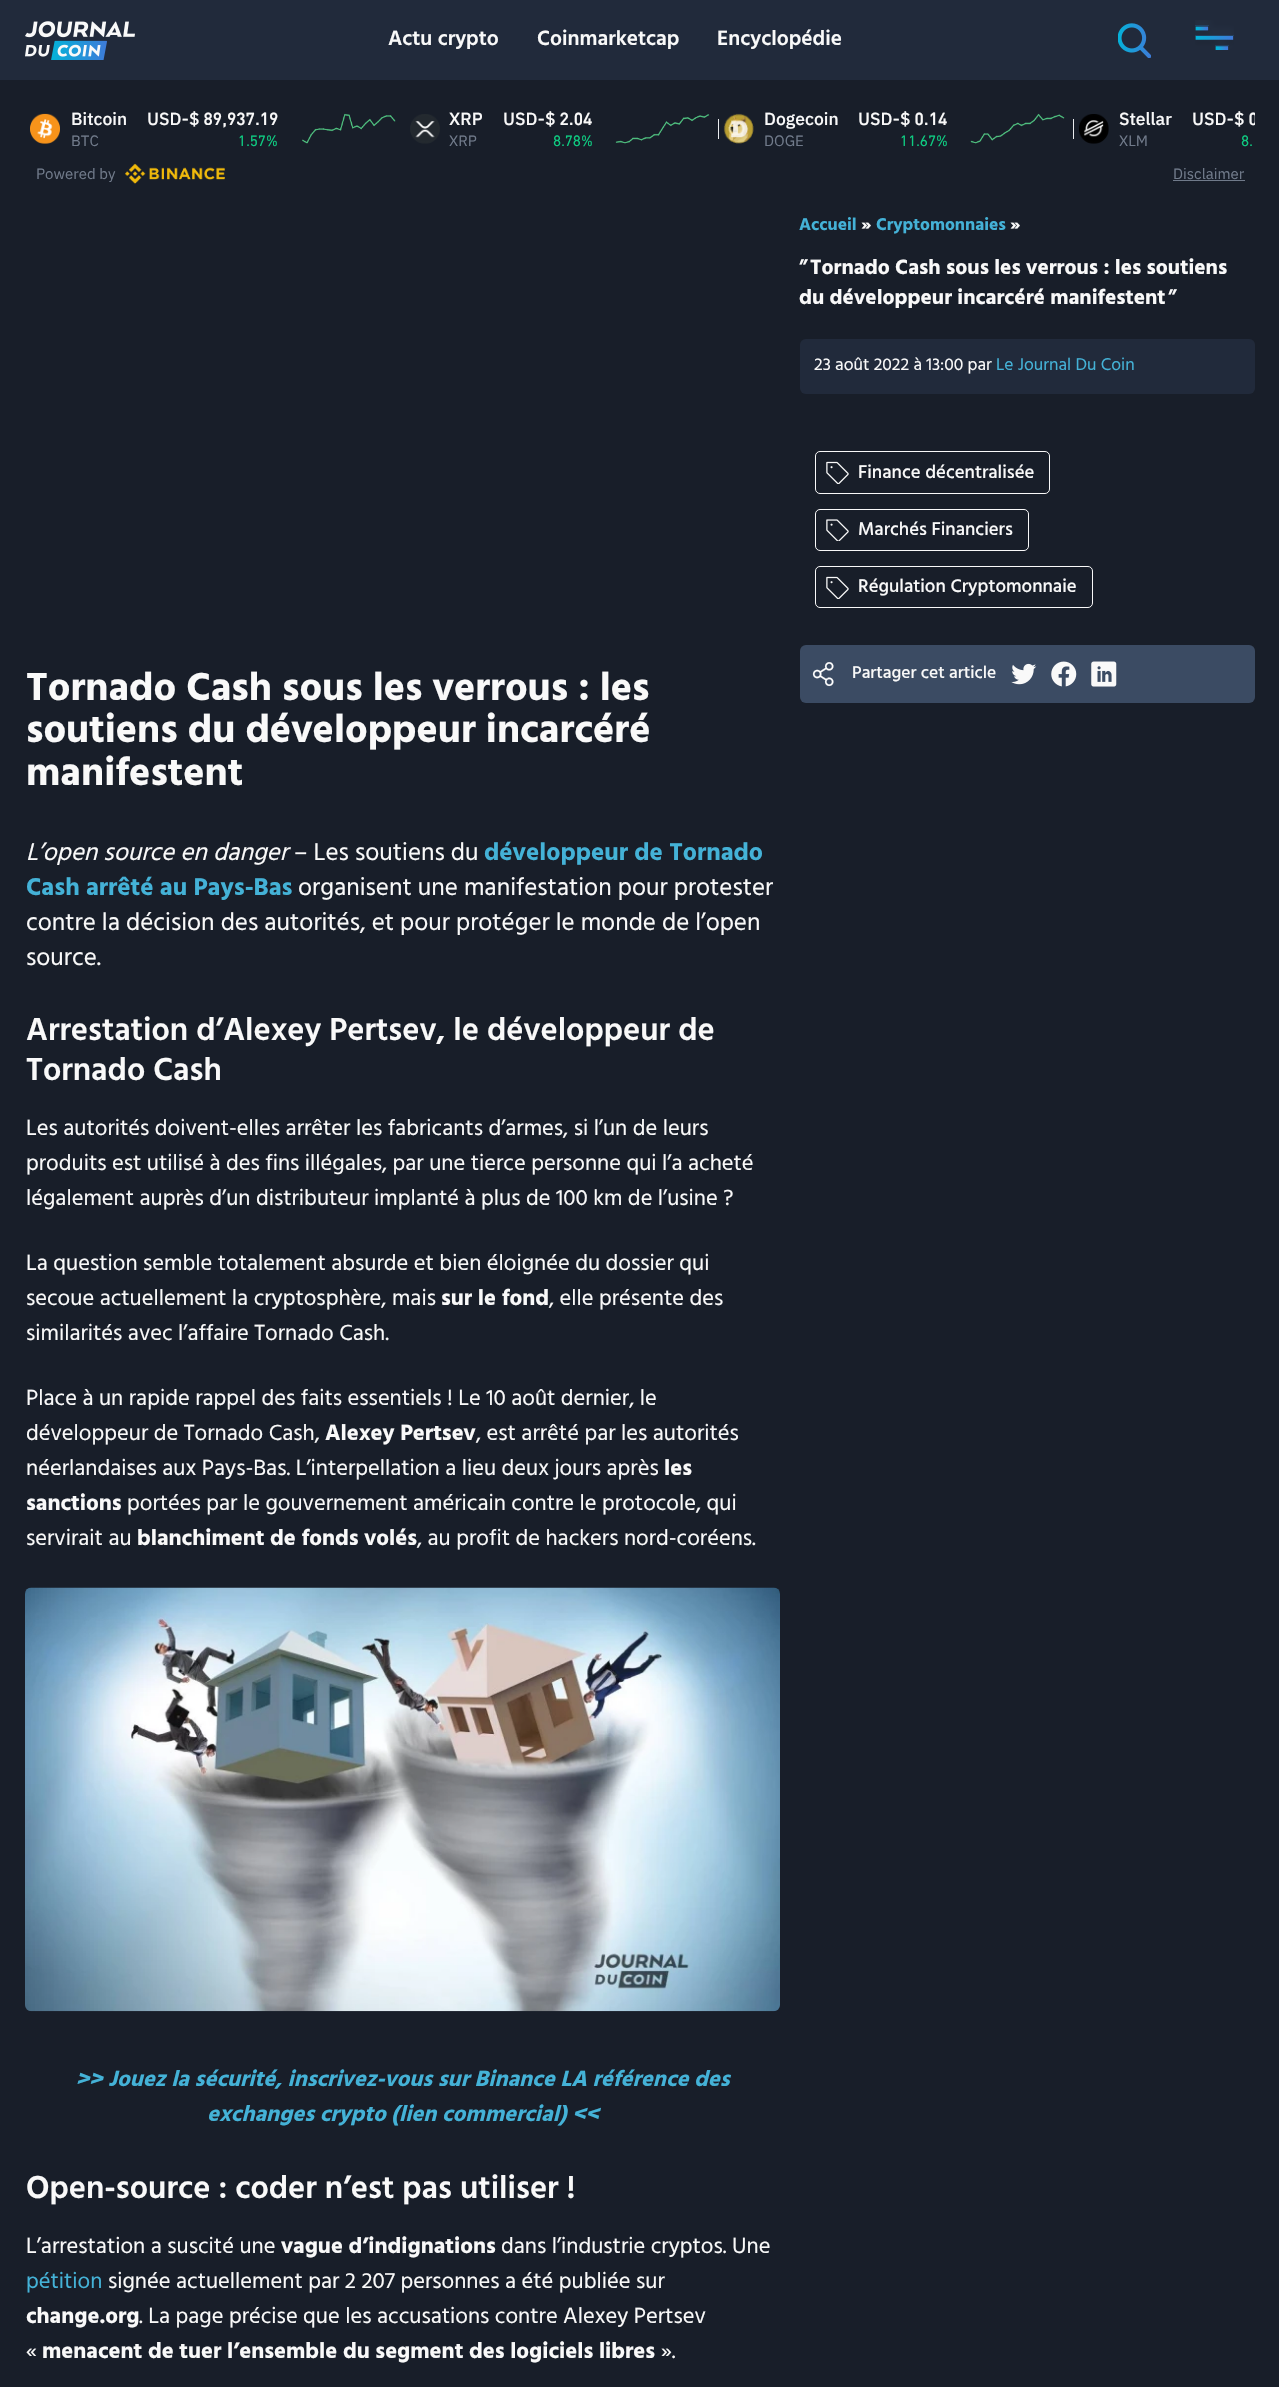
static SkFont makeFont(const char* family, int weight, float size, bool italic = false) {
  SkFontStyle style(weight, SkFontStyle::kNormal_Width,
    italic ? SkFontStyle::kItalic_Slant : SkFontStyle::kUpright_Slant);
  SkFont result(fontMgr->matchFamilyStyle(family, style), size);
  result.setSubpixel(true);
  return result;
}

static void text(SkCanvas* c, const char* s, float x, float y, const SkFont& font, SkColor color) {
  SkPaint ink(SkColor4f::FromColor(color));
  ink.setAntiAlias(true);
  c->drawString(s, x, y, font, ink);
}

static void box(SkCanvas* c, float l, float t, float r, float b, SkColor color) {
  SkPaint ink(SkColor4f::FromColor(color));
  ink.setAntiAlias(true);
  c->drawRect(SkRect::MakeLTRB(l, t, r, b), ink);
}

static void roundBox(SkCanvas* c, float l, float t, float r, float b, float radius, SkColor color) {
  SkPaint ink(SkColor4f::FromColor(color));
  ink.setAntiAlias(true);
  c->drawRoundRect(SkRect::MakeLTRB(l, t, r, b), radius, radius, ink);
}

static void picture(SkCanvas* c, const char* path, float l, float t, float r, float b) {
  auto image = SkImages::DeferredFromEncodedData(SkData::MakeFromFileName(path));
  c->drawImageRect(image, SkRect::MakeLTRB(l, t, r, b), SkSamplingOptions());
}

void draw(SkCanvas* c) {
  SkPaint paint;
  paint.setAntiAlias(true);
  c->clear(0xff181e29);
  box(c, 0, 0, 1279, 80, 0xff212a3b);
  picture(c, "img_01.png", 25, 21, 135, 60);
  SkFont face1 = makeFont("Hind", 600, 21.25f);
  text(c, "Actu crypto", 388, 45, face1, 0xfff9f9f9);
  text(c, "Coinmarketcap", 537, 45, face1, 0xfff9f9f9);
  text(c, "Encyclopédie", 717, 45, face1, 0xfff9f9f9);
  picture(c, "img_02.png", 1118, 23, 1151, 58);
  picture(c, "img_03.png", 1195, 20, 1234, 50);
  picture(c, "img_04.png", 30, 113, 60, 144);
  SkFont face2 = makeFont("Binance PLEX", 500, 17.5f);
  text(c, "Bitcoin", 71, 125, face2, 0xfff9f9f9);
  SkFont face3 = makeFont("Binance PLEX", 400, 15);
  text(c, "BTC", 71, 146, face3, 0xff707a8a);
  text(c, "USD-$ 89,937.19", 147, 125, face2, 0xfff9f9f9);
  text(c, "1.57%", 238, 146, face3, 0xff0ecb81);
  picture(c, "img_05.png", 302, 113, 396, 144);
  picture(c, "img_06.png", 410, 114, 440, 144);
  text(c, "XRP", 449, 125, face2, 0xfff9f9f9);
  text(c, "XRP", 449, 146, face3, 0xff707a8a);
  text(c, "USD-$ 2.04", 503, 125, face2, 0xfff9f9f9);
  text(c, "8.78%", 553, 146, face3, 0xff0ecb81);
  picture(c, "img_07.png", 615, 114, 710, 144);
  box(c, 718, 119, 719, 139, 0xffeaecef);
  picture(c, "img_08.png", 723, 113, 754, 144);
  text(c, "Dogecoin", 764, 125, face2, 0xfff9f9f9);
  text(c, "DOGE", 764, 146, face3, 0xff707a8a);
  text(c, "USD-$ 0.14", 858, 125, face2, 0xfff9f9f9);
  text(c, "11.67%", 900, 146, face3, 0xff0ecb81);
  picture(c, "img_09.png", 970, 113, 1065, 144);
  box(c, 1073, 119, 1074, 139, 0xffeaecef);
  picture(c, "img_10.png", 1079, 114, 1109, 144);
  text(c, "Stellar", 1119, 125, face2, 0xfff9f9f9);
  text(c, "XLM", 1119, 146, face3, 0xff707a8a);
  c->save();
  c->clipRect(SkRect::MakeLTRB(25, 100, 1255, 154));
  text(c, "USD-$ 0", 1192, 125, face2, 0xfff9f9f9);
  c->restore();
  text(c, "8.", 1241, 146, face3, 0xff0ecb81);
  text(c, "Powered by", 36, 179, face3, 0xff707a8a);
  picture(c, "img_11.png", 125, 163, 225, 184);
  text(c, "Disclaimer", 1173, 179, face3, 0xff707a8a);
  box(c, 1173, 180, 1245, 181, 0xff707a8a);
  SkFont face4 = makeFont("Hind", 700, 17.5f);
  text(c, "Accueil", 799, 230, face4, 0xff44b2d7);
  text(c, "»", 861, 230, face4, 0xfff9f9f9);
  text(c, "Cryptomonnaies", 876, 230, face4, 0xff44b2d7);
  text(c, "»", 1010, 230, face4, 0xfff9f9f9);
  text(c, "”", 799, 274, face1, 0xfff9f9f9);
  SkFont face5 = makeFont("Hind", 700, 21.25f);
  text(c, "Tornado Cash sous les verrous : les soutiens", 810, 274, face5, 0xfff9f9f9);
  text(c, "du développeur incarcéré manifestent", 799, 304, face5, 0xfff9f9f9);
  text(c, "”", 1168, 304, face1, 0xfff9f9f9);
  roundBox(c, 800, 339, 1255, 394, 6, 0xff212a3b);
  SkFont face6 = makeFont("Hind", 400, 17.5f);
  text(c, "23 août 2022 à 13:00 par", 814, 370, face6, 0xfff9f9f9);
  text(c, "Le Journal Du Coin", 996, 370, face6, 0xff44b2d7);
  paint.setStyle(SkPaint::kStroke_Style);
  paint.setStrokeWidth(1);
  paint.setColor(0xfff9f9f9);
  c->drawRoundRect(SkRect::MakeLTRB(815.5f, 451.5f, 1049.5f, 493.5f), 4.5f, 4.5f, paint);
  picture(c, "img_12.png", 826, 461, 849, 484);
  SkFont face7 = makeFont("Hind", 500, 18.75f);
  text(c, "Finance décentralisée", 858, 478, face7, 0xfff9f9f9);
  c->drawRoundRect(SkRect::MakeLTRB(815.5f, 509.5f, 1028.5f, 550.5f), 4.5f, 4.5f, paint);
  picture(c, "img_13.png", 826, 519, 849, 541);
  text(c, "Marchés Financiers", 858, 535, face7, 0xfff9f9f9);
  c->drawRoundRect(SkRect::MakeLTRB(815.5f, 566.5f, 1092.5f, 607.5f), 4.5f, 4.5f, paint);
  picture(c, "img_12.png", 826, 576, 849, 599);
  text(c, "Régulation Cryptomonnaie", 858, 592, face7, 0xfff9f9f9);
  roundBox(c, 800, 645, 1255, 703, 6, 0xff3b4b63);
  picture(c, "img_14.png", 812, 662, 834, 687);
  SkFont face8 = makeFont("Hind", 500, 17.5f);
  text(c, "Partager cet article", 852, 678, face8, 0xfff9f9f9);
  picture(c, "img_15.png", 1011, 663, 1037, 685);
  picture(c, "img_16.png", 1051, 661, 1077, 687);
  picture(c, "img_17.png", 1091, 661, 1117, 687);
  SkFont face9 = makeFont("Hind", 700, 40);
  text(c, "Tornado Cash sous les verrous : les", 26, 700, face9, 0xfff9f9f9);
  text(c, "soutiens du développeur incarcéré", 26, 742, face9, 0xfff9f9f9);
  text(c, "manifestent", 26, 785, face9, 0xfff9f9f9);
  SkFont face10 = makeFont("Hind", 400, 25, true);
  text(c, "L’open source en danger", 26, 860, face10, 0xfff9f9f9);
  SkFont face11 = makeFont("Hind", 400, 25);
  text(c, "– Les soutiens du", 294, 860, face11, 0xfff9f9f9);
  SkFont face12 = makeFont("Hind", 700, 25);
  text(c, "développeur de Tornado", 484, 860, face12, 0xff44b2d7);
  text(c, "Cash arrêté au Pays-Bas", 26, 895, face12, 0xff44b2d7);
  text(c, "organisent une manifestation pour protester", 298, 895, face11, 0xfff9f9f9);
  text(c, "contre la décision des autorités, et pour protéger le monde de l’open", 26, 930, face11, 0xfff9f9f9);
  text(c, "source.", 26, 965, face11, 0xfff9f9f9);
  SkFont face13 = makeFont("Hind", 600, 32.5f);
  text(c, "Arrestation d’Alexey Pertsev, le développeur de", 26, 1040, face13, 0xfff9f9f9);
  text(c, "Tornado Cash", 26, 1080, face13, 0xfff9f9f9);
  SkFont face14 = makeFont("Hind", 400, 22.5f);
  text(c, "Les autorités doivent-elles arrêter les fabricants d’armes, si l’un de leurs", 26, 1135, face14, 0xfff9f9f9);
  text(c, "produits est utilisé à des fins illégales, par une tierce personne qui l’a acheté", 26, 1170, face14, 0xfff9f9f9);
  text(c, "légalement auprès d’un distributeur implanté à plus de 100 km de l’usine ?", 26, 1205, face14, 0xfff9f9f9);
  text(c, "La question semble totalement absurde et bien éloignée du dossier qui", 26, 1270, face14, 0xfff9f9f9);
  text(c, "secoue actuellement la cryptosphère, mais", 26, 1305, face14, 0xfff9f9f9);
  SkFont face15 = makeFont("Hind", 700, 22.5f);
  text(c, "sur le fond", 441, 1305, face15, 0xfff9f9f9);
  text(c, ", elle présente des", 549, 1305, face14, 0xfff9f9f9);
  text(c, "similarités avec l’affaire Tornado Cash.", 26, 1340, face14, 0xfff9f9f9);
  text(c, "Place à un rapide rappel des faits essentiels ! Le 10 août dernier, le", 26, 1405, face14, 0xfff9f9f9);
  text(c, "développeur de Tornado Cash,", 26, 1440, face14, 0xfff9f9f9);
  text(c, "Alexey Pertsev", 325, 1440, face15, 0xfff9f9f9);
  text(c, ", est arrêté par les autorités", 476, 1440, face14, 0xfff9f9f9);
  text(c, "néerlandaises aux Pays-Bas. L’interpellation a lieu deux jours après", 26, 1475, face14, 0xfff9f9f9);
  text(c, "les", 664, 1475, face15, 0xfff9f9f9);
  text(c, "sanctions", 26, 1510, face15, 0xfff9f9f9);
  text(c, "portées par le gouvernement américain contre le protocole, qui", 127, 1510, face14, 0xfff9f9f9);
  text(c, "servirait au", 26, 1545, face14, 0xfff9f9f9);
  text(c, "blanchiment de fonds volés", 137, 1545, face15, 0xfff9f9f9);
  text(c, ", au profit de hackers nord-coréens.", 417, 1545, face14, 0xfff9f9f9);
  picture(c, "img_18.png", 25, 1587, 780, 2012);
  SkFont face16 = makeFont("Hind", 700, 22.5f, true);
  text(c, ">> Jouez la sécurité, inscrivez-vous sur Binance LA référence des", 76, 2086, face16, 0xff44b2d7);
  text(c, "exchanges crypto (lien commercial) <<", 207, 2121, face16, 0xff44b2d7);
  text(c, "Open-source : coder n’est pas utiliser !", 26, 2198, face13, 0xfff9f9f9);
  text(c, "L’arrestation a suscité une", 26, 2253, face14, 0xfff9f9f9);
  text(c, "vague d’indignations", 281, 2253, face15, 0xfff9f9f9);
  text(c, "dans l’industrie cryptos. Une", 501, 2253, face14, 0xfff9f9f9);
  text(c, "pétition", 26, 2288, face14, 0xff44b2d7);
  text(c, "signée actuellement par 2 207 personnes a été publiée sur", 108, 2288, face14, 0xfff9f9f9);
  text(c, "change.org", 26, 2323, face15, 0xfff9f9f9);
  text(c, ". La page précise que les accusations contre Alexey Pertsev", 139, 2323, face14, 0xfff9f9f9);
  text(c, "«", 26, 2358, face14, 0xfff9f9f9);
  text(c, "menacent de tuer l’ensemble du segment des logiciels libres", 42, 2358, face15, 0xfff9f9f9);
  text(c, "».", 661, 2358, face14, 0xfff9f9f9);
}
